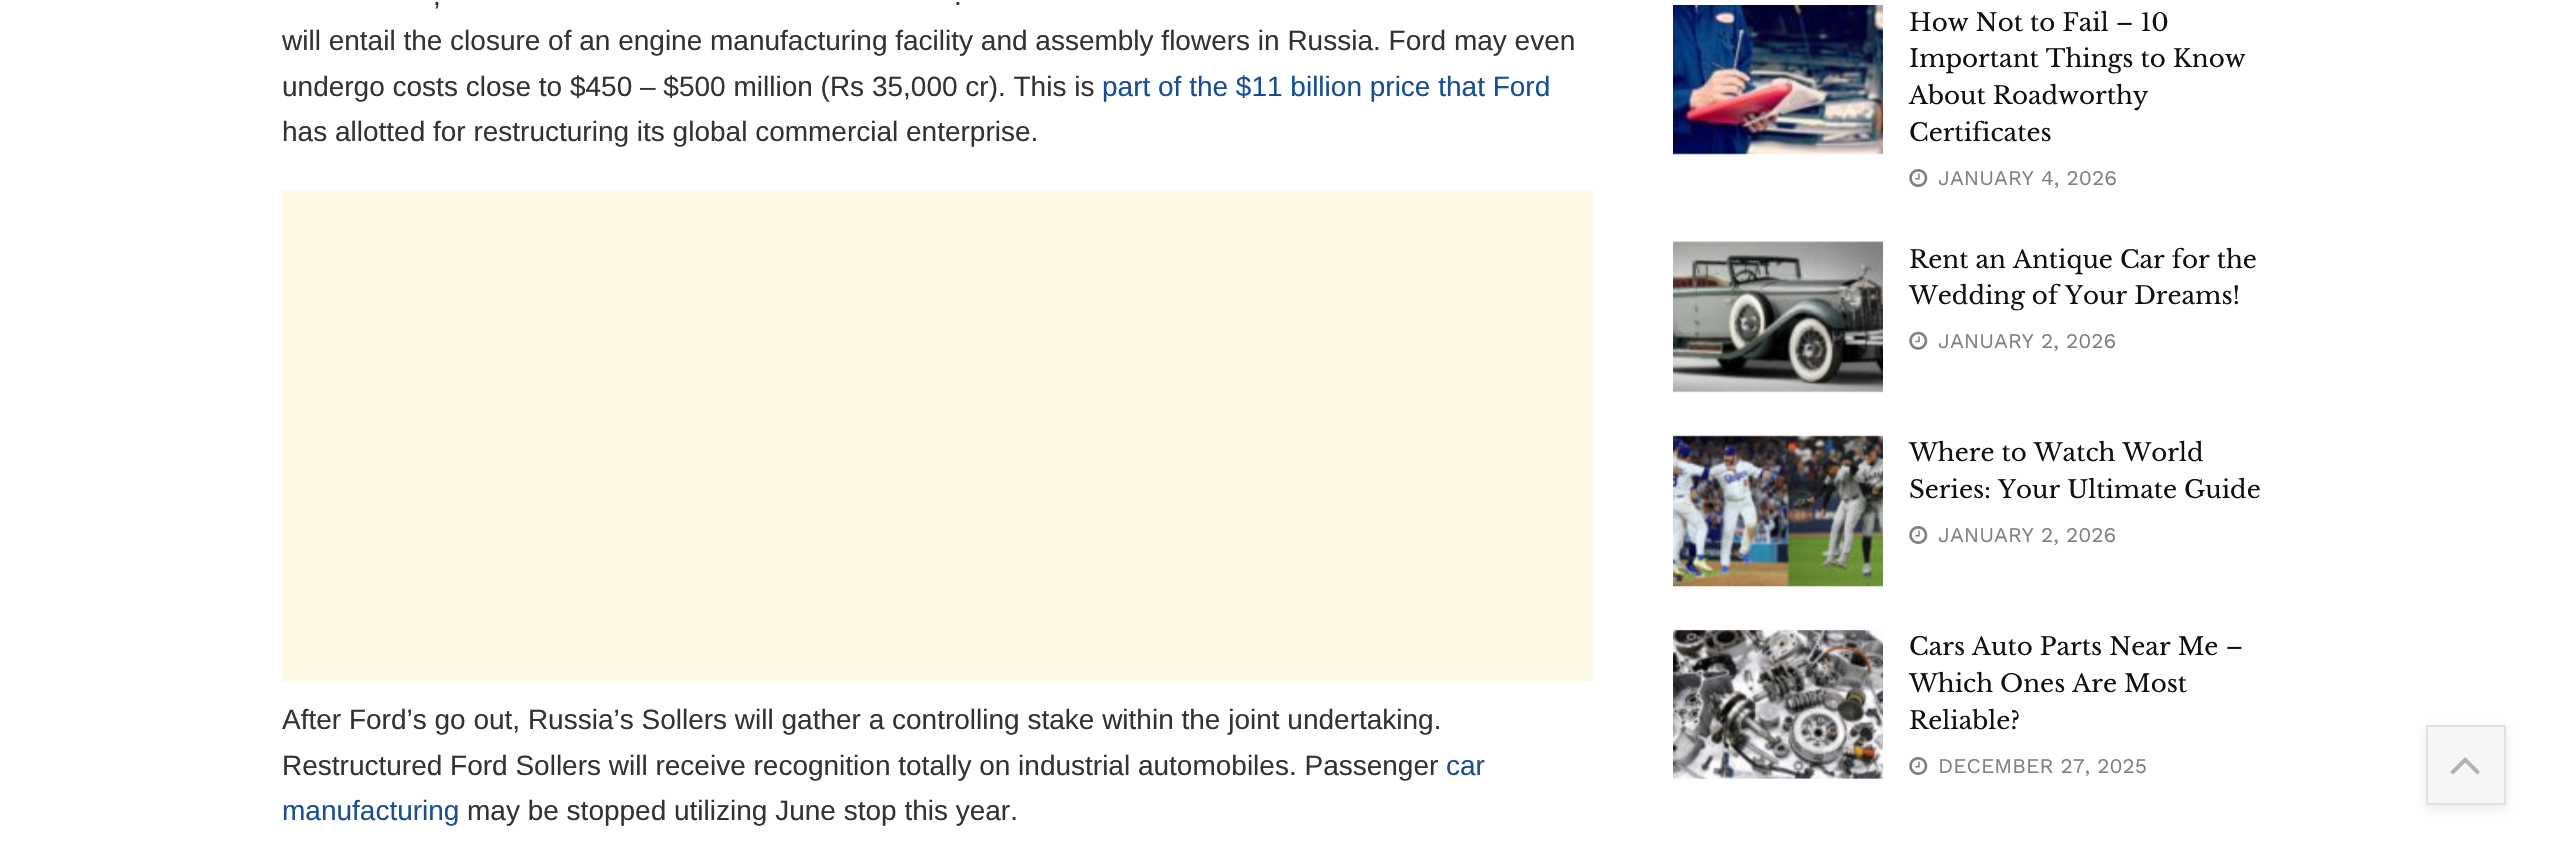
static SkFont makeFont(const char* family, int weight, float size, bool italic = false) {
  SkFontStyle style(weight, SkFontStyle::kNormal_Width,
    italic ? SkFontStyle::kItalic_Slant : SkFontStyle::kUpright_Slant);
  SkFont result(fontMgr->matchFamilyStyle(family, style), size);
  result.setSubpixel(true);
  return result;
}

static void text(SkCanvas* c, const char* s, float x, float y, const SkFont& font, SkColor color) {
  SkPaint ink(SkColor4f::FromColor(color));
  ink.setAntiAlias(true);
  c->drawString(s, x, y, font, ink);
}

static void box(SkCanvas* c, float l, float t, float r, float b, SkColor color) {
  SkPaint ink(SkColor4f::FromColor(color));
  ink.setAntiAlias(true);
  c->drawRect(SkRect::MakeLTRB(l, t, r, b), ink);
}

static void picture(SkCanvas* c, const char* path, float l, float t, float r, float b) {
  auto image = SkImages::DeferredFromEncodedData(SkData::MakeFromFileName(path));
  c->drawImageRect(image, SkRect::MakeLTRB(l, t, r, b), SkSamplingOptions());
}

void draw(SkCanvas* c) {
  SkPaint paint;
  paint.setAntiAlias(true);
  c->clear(0xffffffff);
  SkFont face1 = makeFont("Liberation Sans", 400, 28);
  text(c, ",", 433, 5, face1, 0xff333333);
  text(c, ".", 954, 5, face1, 0xff333333);
  text(c, "will entail the closure of an engine manufacturing facility and assembly flowers in Russia. Ford may even", 282, 50, face1, 0xff333333);
  text(c, "undergo costs close to $450 – $500 million (Rs 35,000 cr). This is", 282, 96, face1, 0xff333333);
  text(c, "part of the $11 billion price that Ford", 1102, 96, face1, 0xff174e96);
  text(c, "has allotted for restructuring its global commercial enterprise.", 282, 141, face1, 0xff333333);
  box(c, 282, 191, 1594, 681, 0xfffcf8e3);
  text(c, "After Ford’s go out, Russia’s Sollers will gather a controlling stake within the joint undertaking.", 282, 729, face1, 0xff333333);
  text(c, "Restructured Ford Sollers will receive recognition totally on industrial automobiles. Passenger", 282, 775, face1, 0xff333333);
  text(c, "car", 1446, 775, face1, 0xff174e96);
  text(c, "manufacturing", 282, 820, face1, 0xff174e96);
  text(c, "may be stopped utilizing June stop this year.", 467, 820, face1, 0xff333333);
  picture(c, "img_01.png", 1673, 5, 1883, 155);
  SkFont face2 = makeFont("Libre Baskerville", 400, 24.5f);
  text(c, "How Not to Fail – 10", 1909, 31, face2, 0xff111111);
  text(c, "Important Things to Know", 1909, 67, face2, 0xff111111);
  text(c, "About Roadworthy", 1909, 104, face2, 0xff111111);
  text(c, "Certificates", 1909, 141, face2, 0xff111111);
  picture(c, "img_02.png", 1909, 169, 1928, 187);
  SkFont face3 = makeFont("Work Sans", 400, 21);
  text(c, "JANUARY 4, 2026", 1938, 185, face3, 0xff808080);
  box(c, 1673, 242, 1883, 392, 0xfff7f7f7);
  picture(c, "img_03.png", 1673, 241, 1883, 393);
  text(c, "Rent an Antique Car for the", 1909, 268, face2, 0xff111111);
  text(c, "Wedding of Your Dreams!", 1909, 304, face2, 0xff111111);
  picture(c, "img_04.png", 1909, 331, 1928, 350);
  text(c, "JANUARY 2, 2026", 1938, 348, face3, 0xff808080);
  picture(c, "img_05.png", 1673, 435, 1883, 587);
  text(c, "Where to Watch World", 1909, 461, face2, 0xff111111);
  text(c, "Series: Your Ultimate Guide", 1909, 498, face2, 0xff111111);
  picture(c, "img_02.png", 1909, 526, 1928, 544);
  text(c, "JANUARY 2, 2026", 1938, 542, face3, 0xff808080);
  box(c, 1673, 630, 1883, 779, 0xfff7f7f7);
  picture(c, "img_06.png", 1673, 629, 1883, 779);
  text(c, "Cars Auto Parts Near Me –", 1909, 655, face2, 0xff111111);
  text(c, "Which Ones Are Most", 1909, 692, face2, 0xff111111);
  text(c, "Reliable?", 1909, 729, face2, 0xff111111);
  picture(c, "img_02.png", 1909, 757, 1928, 775);
  text(c, "DECEMBER 27, 2025", 1938, 773, face3, 0xff808080);
  paint.setColor(0x1a333333);
  paint.setMaskFilter(SkMaskFilter::MakeBlur(kNormal_SkBlurStyle, 5));
  c->drawRect(SkRect::MakeLTRB(2426, 728, 2506, 809), paint);
  paint.setMaskFilter(nullptr);
  box(c, 2428, 729, 2504, 803, 0xfff6f6f6);
  paint.setStyle(SkPaint::kStroke_Style);
  paint.setStrokeWidth(2);
  paint.setColor(0xffe1e1e1);
  c->drawRect(SkRect::MakeLTRB(2427, 726, 2505, 804), paint);
  picture(c, "img_07.png", 2450, 757, 2480, 775);
}
